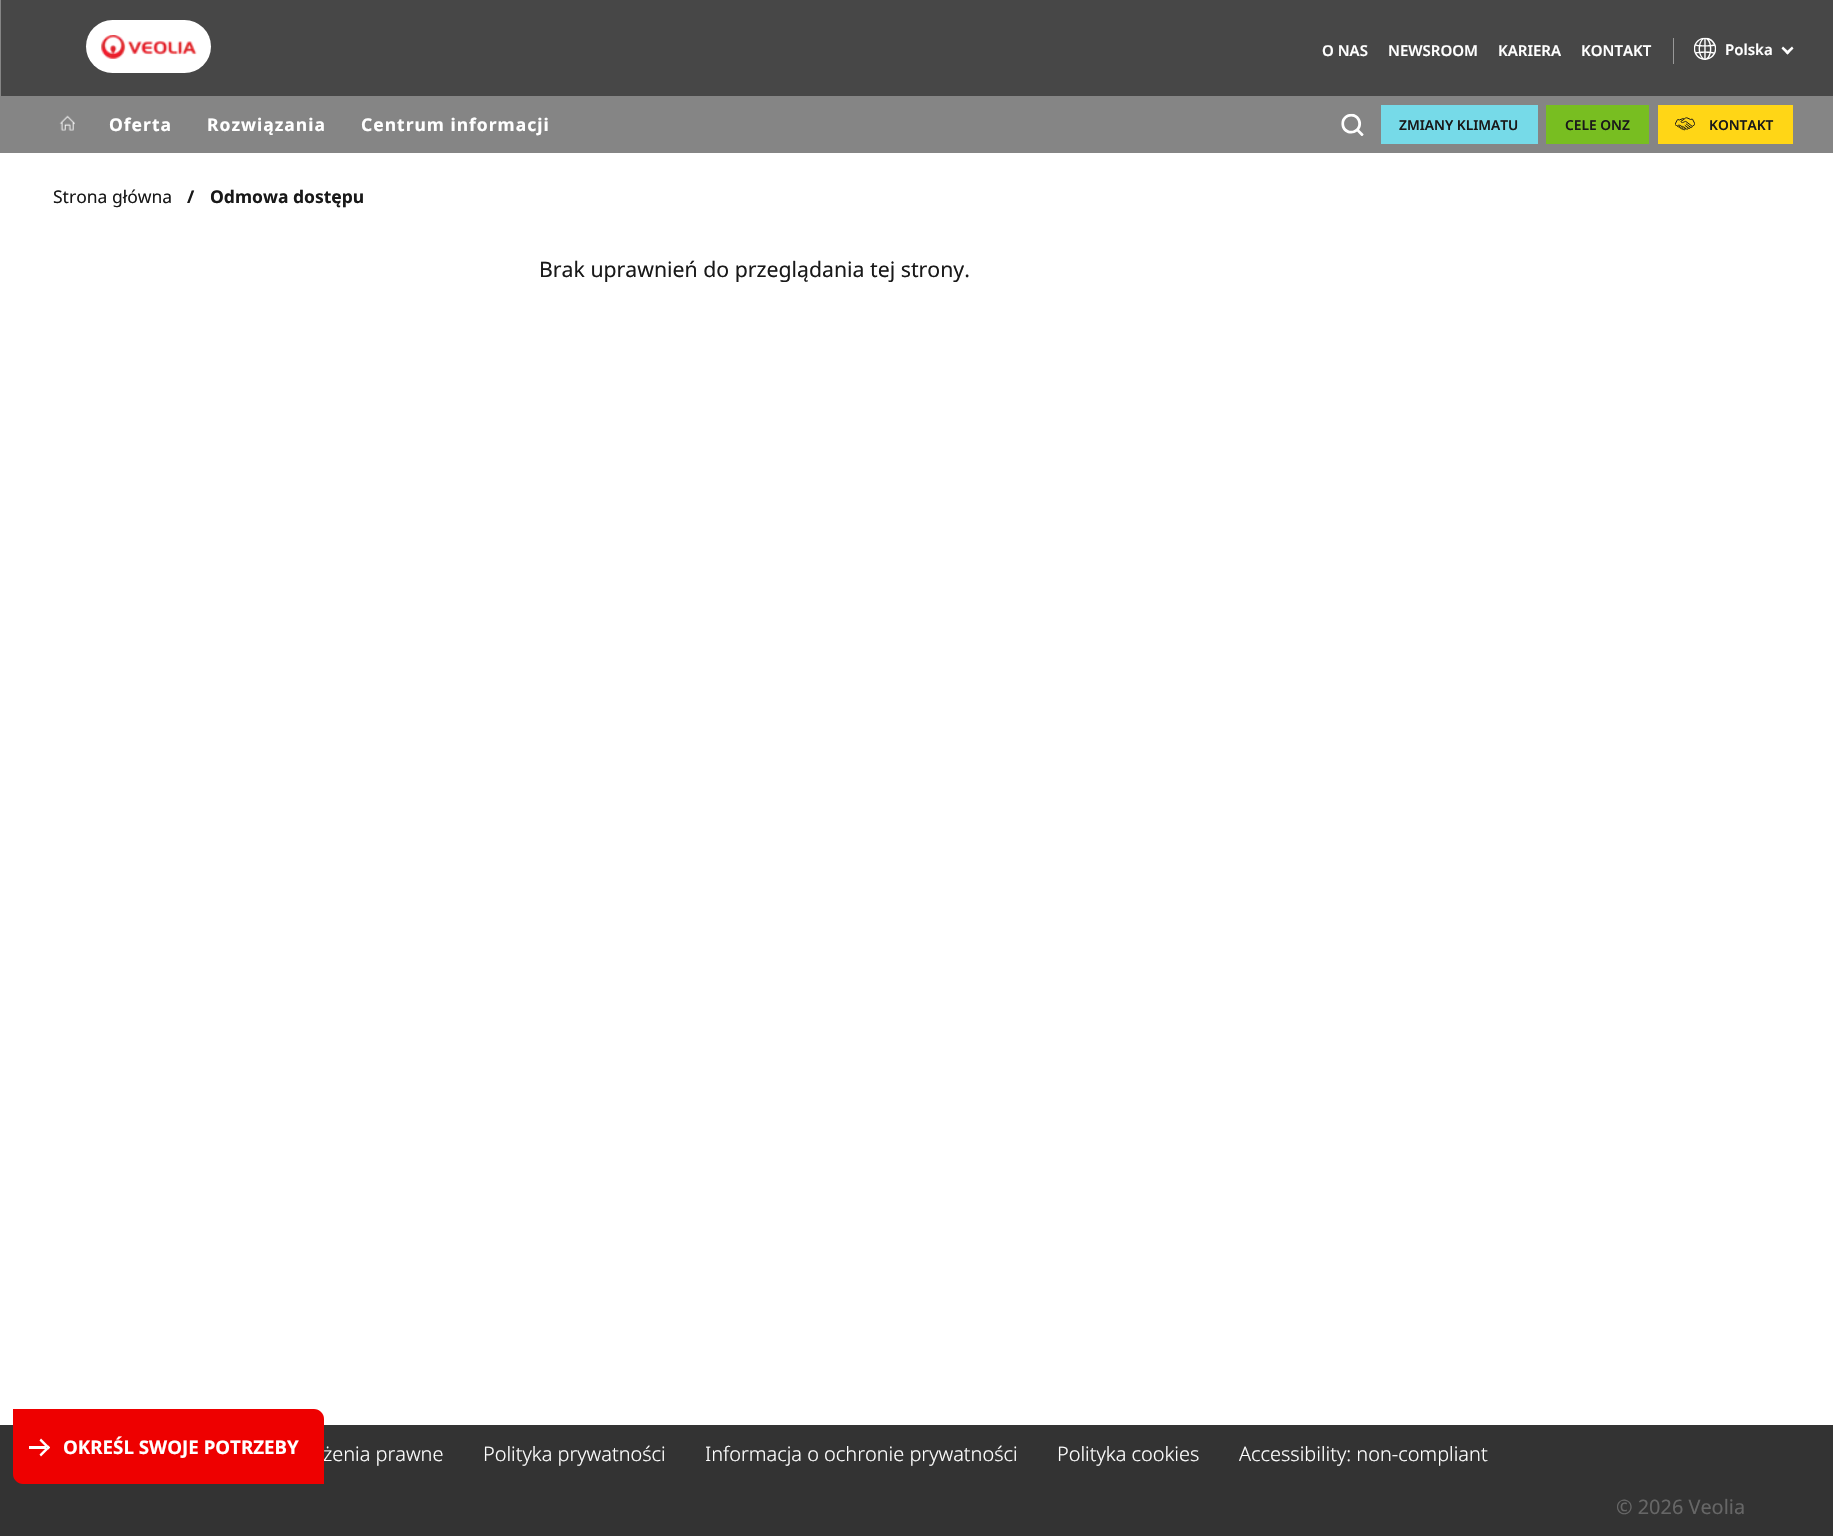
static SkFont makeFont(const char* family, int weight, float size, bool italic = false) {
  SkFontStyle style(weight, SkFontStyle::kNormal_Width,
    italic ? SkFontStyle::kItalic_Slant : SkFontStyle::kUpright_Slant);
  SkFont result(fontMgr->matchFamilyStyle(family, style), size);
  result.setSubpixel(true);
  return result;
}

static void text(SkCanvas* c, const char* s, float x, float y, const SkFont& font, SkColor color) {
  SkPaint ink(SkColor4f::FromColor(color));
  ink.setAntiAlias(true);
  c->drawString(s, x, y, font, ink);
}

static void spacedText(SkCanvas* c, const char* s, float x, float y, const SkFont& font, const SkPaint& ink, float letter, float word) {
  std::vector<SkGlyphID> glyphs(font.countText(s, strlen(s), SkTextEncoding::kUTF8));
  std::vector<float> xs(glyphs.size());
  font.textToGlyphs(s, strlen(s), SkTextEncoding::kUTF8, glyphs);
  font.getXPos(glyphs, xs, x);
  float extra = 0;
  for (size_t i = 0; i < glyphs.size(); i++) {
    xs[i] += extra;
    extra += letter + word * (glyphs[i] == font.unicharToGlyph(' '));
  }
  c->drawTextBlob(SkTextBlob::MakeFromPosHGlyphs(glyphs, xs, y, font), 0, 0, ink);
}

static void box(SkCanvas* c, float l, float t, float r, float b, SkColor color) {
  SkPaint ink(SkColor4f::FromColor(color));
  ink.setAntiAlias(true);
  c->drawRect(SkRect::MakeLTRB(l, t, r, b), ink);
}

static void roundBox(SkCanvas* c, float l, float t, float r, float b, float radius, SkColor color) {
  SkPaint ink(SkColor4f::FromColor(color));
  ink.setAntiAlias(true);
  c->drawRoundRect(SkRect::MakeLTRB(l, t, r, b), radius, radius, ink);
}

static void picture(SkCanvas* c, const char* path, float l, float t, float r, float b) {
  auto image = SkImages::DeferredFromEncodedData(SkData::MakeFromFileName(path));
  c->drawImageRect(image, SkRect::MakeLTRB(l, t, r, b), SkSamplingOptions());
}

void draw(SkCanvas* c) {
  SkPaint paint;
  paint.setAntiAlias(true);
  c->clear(0xffffffff);
  box(c, 0, 0, 1833, 153, 0xff858585);
  box(c, 1, 0, 1833, 96, 0xff474747);
  roundBox(c, 86, 20, 211, 73, 26.5f, 0xffffffff);
  picture(c, "img_01.png", 101, 35, 197, 59);
  SkFont face1 = makeFont("Noto Sans", 600, 15);
  text(c, "O NAS", 1322, 56, face1, 0xffffffff);
  text(c, "NEWSROOM", 1388, 56, face1, 0xffffffff);
  text(c, "KARIERA", 1498, 56, face1, 0xffffffff);
  text(c, "KONTAKT", 1581, 56, face1, 0xffffffff);
  box(c, 1673, 38, 1674, 64, 0xff999999);
  picture(c, "img_02.png", 1694, 37, 1716, 60);
  text(c, "Polska", 1725, 55, face1, 0xffffffff);
  paint.setColor(0xffffffff);
  c->drawPath(SkPathBuilder().moveTo(1792, 46.5f).lineTo(1793.5f, 48.5f).lineTo(1787.5f, 54.5f).lineTo(1785.5f, 52.5f).close().detach(), paint);
  c->drawPath(SkPathBuilder().moveTo(1783, 46.5f).lineTo(1789.5f, 52.5f).lineTo(1787.5f, 54.5f).lineTo(1781.5f, 48.5f).close().detach(), paint);
  picture(c, "img_03.png", 59, 115, 75, 131);
  SkFont face2 = makeFont("Noto Sans", 700, 17.5f);
  spacedText(c, "Oferta", 109, 131, face2, paint, 1, 0);
  spacedText(c, "Rozwiązania", 207, 131, face2, paint, 1, 0);
  spacedText(c, "Centrum informacji", 361, 131, face2, paint, 1, 0);
  picture(c, "img_04.png", 1341, 113, 1364, 136);
  box(c, 1381, 105, 1538, 144, 0xff76dae8);
  SkFont face3 = makeFont("Noto Sans", 600, 13.75f);
  text(c, "ZMIANY KLIMATU", 1399, 130, face3, 0xff191919);
  box(c, 1546, 105, 1649, 144, 0xff78be21);
  text(c, "CELE ONZ", 1565, 130, face3, 0xff191919);
  box(c, 1658, 105, 1793, 144, 0xffffd616);
  picture(c, "img_05.png", 1675, 117, 1695, 131);
  text(c, "KONTAKT", 1709, 130, face3, 0xff191919);
  SkFont face4 = makeFont("Noto Sans", 400, 17.5f);
  text(c, "Strona główna", 53, 203, face4, 0xff191919);
  text(c, "/", 187, 203, face2, 0xff191919);
  text(c, "Odmowa dostępu", 210, 203, face2, 0xff191919);
  SkFont face5 = makeFont("Noto Sans", 400, 21.25f);
  text(c, "Brak uprawnień do przeglądania tej strony.", 539, 277, face5, 0xff191919);
  box(c, 0, 1425, 1833, 1536, 0xff333333);
  SkFont face6 = makeFont("Noto Sans", 300, 19.9f);
  text(c, "żenia prawne", 323, 1461, face6, 0xffffffff);
  paint.setColor(0xffee0000);
  c->drawPath(SkPathBuilder().moveTo(13, 1409).lineTo(314, 1409).cubicTo(319.5f, 1409, 324, 1413.5f, 324, 1419).lineTo(324, 1484).lineTo(23, 1484).cubicTo(17.5f, 1484, 13, 1479.5f, 13, 1474).close().detach(), paint);
  box(c, 29, 1446, 46, 1449, 0xffffffff);
  paint.setColor(0xffffffff);
  c->drawPath(SkPathBuilder().moveTo(39.5f, 1440.5f).lineTo(41, 1438.5f).lineTo(50, 1447.5f).lineTo(48.5f, 1449.5f).close().detach(), paint);
  c->drawPath(SkPathBuilder().moveTo(39.5f, 1454.5f).lineTo(48.5f, 1445.5f).lineTo(50, 1447.5f).lineTo(41, 1456.5f).close().detach(), paint);
  SkFont face7 = makeFont("Noto Sans", 700, 18.75f);
  text(c, "OKREŚL SWOJE POTRZEBY", 63, 1454, face7, 0xffffffff);
  text(c, "Polityka prywatności", 483, 1461, face6, 0xffffffff);
  text(c, "Informacja o ochronie prywatności", 705, 1461, face6, 0xffffffff);
  text(c, "Polityka cookies", 1057, 1461, face6, 0xffffffff);
  text(c, "Accessibility: non-compliant", 1239, 1461, face6, 0xffffffff);
  SkFont face8 = makeFont("Noto Sans", 400, 19.9f);
  text(c, "© 2026 Veolia", 1616, 1514, face8, 0xff666666);
}
